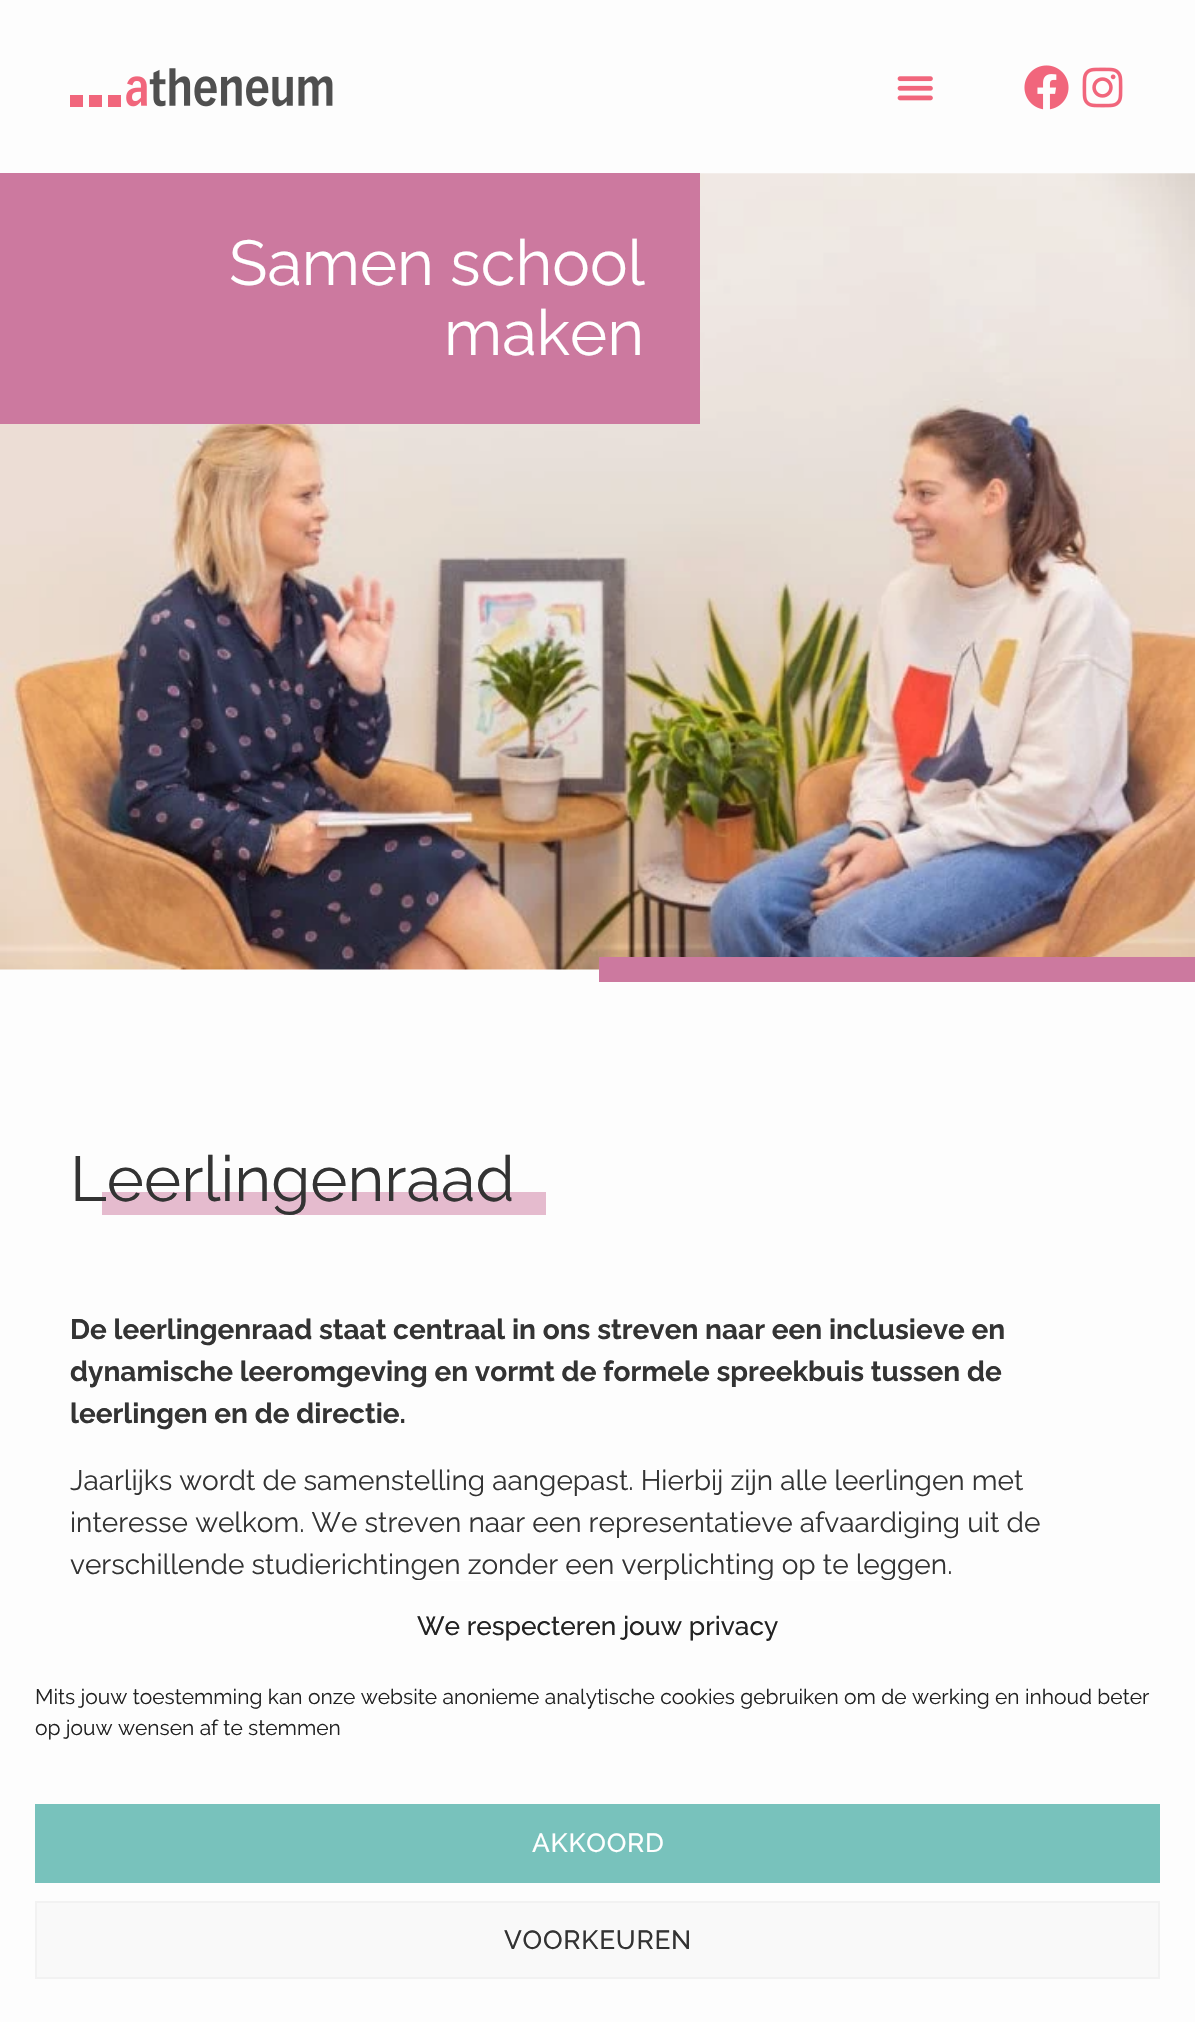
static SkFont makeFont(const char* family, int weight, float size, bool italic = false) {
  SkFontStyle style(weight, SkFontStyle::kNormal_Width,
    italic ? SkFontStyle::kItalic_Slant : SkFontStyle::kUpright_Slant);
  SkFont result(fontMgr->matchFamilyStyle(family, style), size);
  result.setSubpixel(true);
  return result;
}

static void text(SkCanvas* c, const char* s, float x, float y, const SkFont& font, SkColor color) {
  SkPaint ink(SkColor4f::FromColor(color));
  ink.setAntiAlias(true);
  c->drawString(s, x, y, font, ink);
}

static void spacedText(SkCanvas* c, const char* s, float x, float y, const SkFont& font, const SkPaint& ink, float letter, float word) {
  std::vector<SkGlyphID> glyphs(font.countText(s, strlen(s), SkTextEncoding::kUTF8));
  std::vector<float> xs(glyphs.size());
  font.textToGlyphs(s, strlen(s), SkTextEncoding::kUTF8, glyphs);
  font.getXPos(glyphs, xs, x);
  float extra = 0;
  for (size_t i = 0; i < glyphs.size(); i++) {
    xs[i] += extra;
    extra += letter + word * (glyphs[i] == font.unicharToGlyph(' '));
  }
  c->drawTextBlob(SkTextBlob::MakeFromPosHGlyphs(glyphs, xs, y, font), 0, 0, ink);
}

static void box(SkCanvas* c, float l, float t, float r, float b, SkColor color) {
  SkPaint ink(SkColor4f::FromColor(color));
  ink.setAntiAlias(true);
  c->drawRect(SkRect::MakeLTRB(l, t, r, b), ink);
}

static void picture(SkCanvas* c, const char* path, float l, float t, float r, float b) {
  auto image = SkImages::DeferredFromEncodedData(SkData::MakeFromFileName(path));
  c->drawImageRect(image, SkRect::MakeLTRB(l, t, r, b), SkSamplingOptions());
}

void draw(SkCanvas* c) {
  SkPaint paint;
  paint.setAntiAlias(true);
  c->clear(0xfffdfdfd);
  picture(c, "img_01.png", 70, 68, 333, 107);
  picture(c, "img_02.png", 897, 76, 933, 101);
  picture(c, "img_03.png", 1024, 65, 1069, 110);
  picture(c, "img_04.png", 1082, 67, 1123, 108);
  picture(c, "img_05.png", 0, 173, 1195, 970);
  box(c, 0, 173, 700, 424, 0xffcc799f);
  SkFont face1 = makeFont("Raleway", 400, 63.25f);
  text(c, "Samen school", 229, 285, face1, 0xffffffff);
  text(c, "maken", 444, 355, face1, 0xffffffff);
  box(c, 599, 957, 1195, 982, 0xffcc799f);
  box(c, 102, 1192, 546, 1215, 0xffe5bbce);
  text(c, "Leerlingenraad", 70, 1201, face1, 0xff333333);
  SkFont face2 = makeFont("Raleway", 700, 28);
  text(c, "De leerlingenraad staat centraal in ons streven naar een inclusieve en", 70, 1339, face2, 0xff333333);
  text(c, "dynamische leeromgeving en vormt de formele spreekbuis tussen de", 70, 1381, face2, 0xff333333);
  text(c, "leerlingen en de directie.", 70, 1423, face2, 0xff333333);
  SkFont face3 = makeFont("Raleway", 400, 28);
  text(c, "Jaarlijks wordt de samenstelling aangepast. Hierbij zijn alle leerlingen met", 70, 1490, face3, 0xff333333);
  text(c, "interesse welkom. We streven naar een representatieve afvaardiging uit de", 70, 1532, face3, 0xff333333);
  text(c, "verschillende studierichtingen zonder een verplichting op te leggen.", 70, 1574, face3, 0xff333333);
  box(c, 416, 1580, 908, 1581, 0xffffffff);
  SkFont face4 = makeFont("Raleway", 500, 26.25f);
  text(c, "We respecteren jouw privacy", 417, 1635, face4, 0xff222222);
  SkFont face5 = makeFont("Raleway", 400, 21);
  text(c, "Mits jouw toestemming kan onze website anonieme analytische cookies gebruiken om de werking en inhoud beter", 35, 1704, face5, 0xff222222);
  text(c, "op jouw wensen af te stemmen", 35, 1735, face5, 0xff222222);
  box(c, 35, 1804, 1160, 1883, 0xff78c2bc);
  paint.setColor(0xffffffff);
  spacedText(c, "AKKOORD", 532, 1852, face4, paint, 0.75f, 0);
  paint.setColor(0xfff9f9f9);
  c->drawRect(SkRect::MakeLTRB(36, 1902, 1159, 1978), paint);
  paint.setStyle(SkPaint::kStroke_Style);
  paint.setStrokeWidth(2);
  paint.setColor(0xfff2f2f2);
  c->drawRect(SkRect::MakeLTRB(36, 1902, 1159, 1978), paint);
  paint.setStyle(SkPaint::kFill_Style);
  paint.setColor(0xff333333);
  spacedText(c, "VOORKEUREN", 504, 1949, face4, paint, 0.75f, 0);
}
